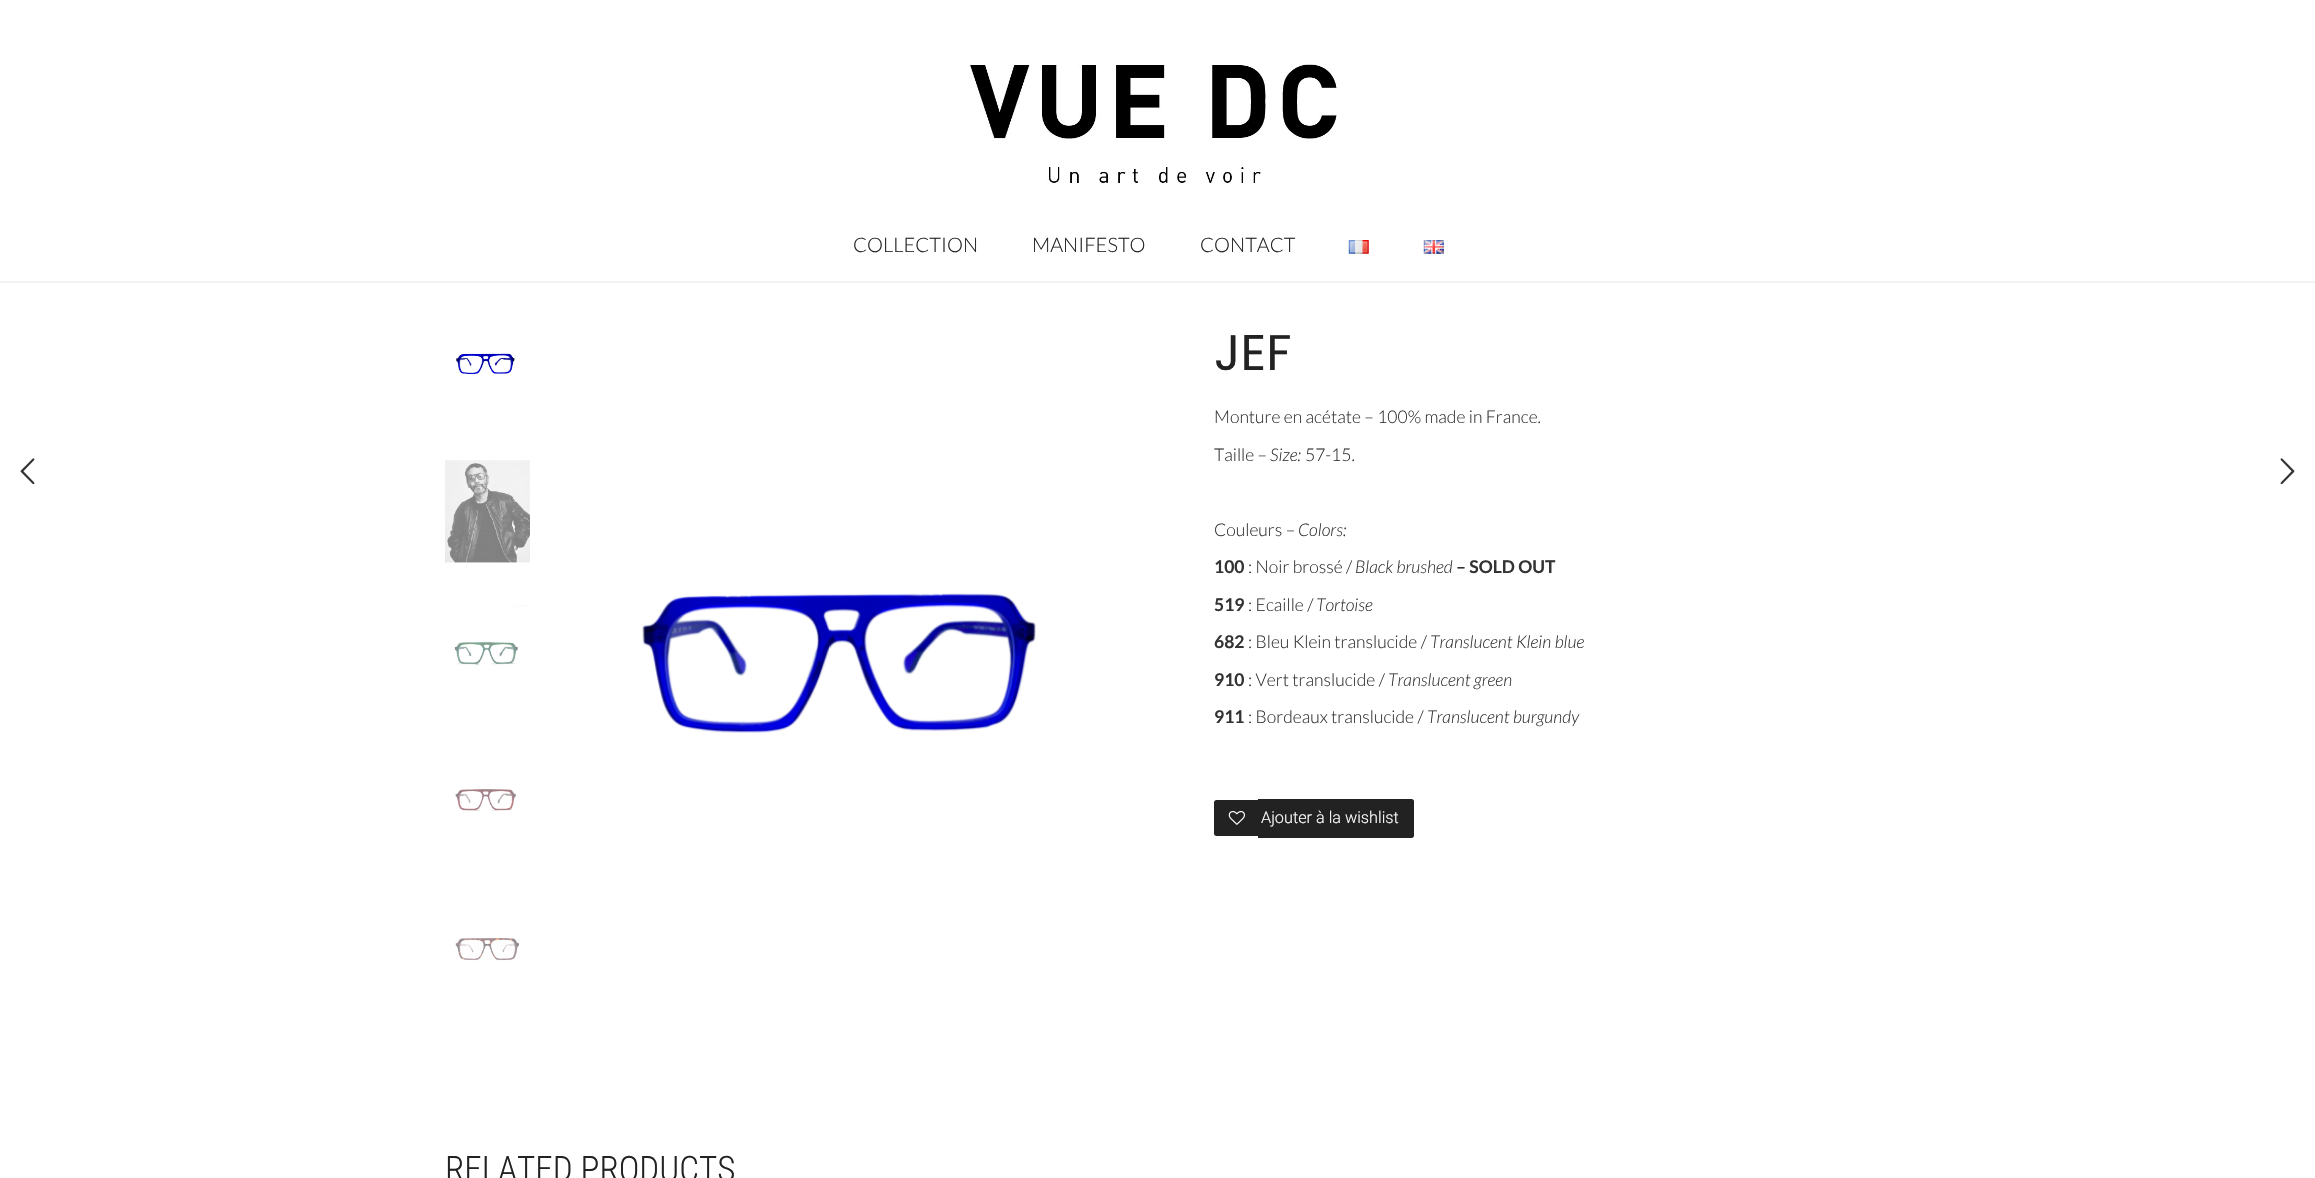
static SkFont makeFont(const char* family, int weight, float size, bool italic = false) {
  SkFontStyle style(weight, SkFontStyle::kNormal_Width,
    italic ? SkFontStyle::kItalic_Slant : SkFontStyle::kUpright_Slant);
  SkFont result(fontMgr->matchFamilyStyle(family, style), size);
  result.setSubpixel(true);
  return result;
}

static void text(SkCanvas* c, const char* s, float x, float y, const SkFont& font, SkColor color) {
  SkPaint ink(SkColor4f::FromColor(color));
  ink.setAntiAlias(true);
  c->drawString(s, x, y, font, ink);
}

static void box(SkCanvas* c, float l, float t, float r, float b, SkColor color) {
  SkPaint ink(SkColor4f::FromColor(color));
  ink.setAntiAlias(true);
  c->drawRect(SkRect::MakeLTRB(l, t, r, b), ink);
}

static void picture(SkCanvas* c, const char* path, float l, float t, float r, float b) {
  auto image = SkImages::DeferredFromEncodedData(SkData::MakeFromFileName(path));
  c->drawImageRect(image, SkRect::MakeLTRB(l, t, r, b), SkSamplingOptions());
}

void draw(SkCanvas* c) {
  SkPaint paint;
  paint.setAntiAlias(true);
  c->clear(0xffffffff);
  box(c, 0, 281, 2315, 283, 0xfff2f2f2);
  picture(c, "img_01.png", 970, 64, 1337, 184);
  SkFont face1 = makeFont("Lato", 300, 20);
  text(c, "COLLECTION", 853, 252, face1, 0xff222222);
  text(c, "MANIFESTO", 1032, 252, face1, 0xff222222);
  text(c, "CONTACT", 1200, 252, face1, 0xff222222);
  picture(c, "img_02.png", 1348, 240, 1369, 254);
  picture(c, "img_03.png", 1423, 240, 1444, 254);
  picture(c, "img_04.png", 456, 353, 515, 374);
  picture(c, "img_05.png", 445, 460, 530, 563);
  picture(c, "img_06.png", 454, 605, 527, 666);
  picture(c, "img_07.png", 455, 789, 516, 811);
  picture(c, "img_08.png", 455, 938, 520, 961);
  picture(c, "img_09.png", 642, 593, 1036, 733);
  SkFont face2 = makeFont("Poppins", 400, 50);
  text(c, "JEF", 1214, 370, face2, 0xff222222);
  SkFont face3 = makeFont("Lato", 300, 17.5f);
  text(c, "Monture en acétate – 100% made in France.", 1214, 423, face3, 0xff333333);
  text(c, "Taille –", 1214, 461, face3, 0xff333333);
  SkFont face4 = makeFont("Lato", 300, 17.5f, true);
  text(c, "Size:", 1270, 461, face4, 0xff333333);
  text(c, "57-15.", 1305, 461, face3, 0xff333333);
  text(c, "Couleurs –", 1214, 536, face3, 0xff333333);
  text(c, "Colors:", 1298, 536, face4, 0xff333333);
  SkFont face5 = makeFont("Lato", 700, 17.5f);
  text(c, "100", 1214, 573, face5, 0xff333333);
  text(c, ": Noir brossé /", 1248, 573, face3, 0xff333333);
  text(c, "Black brushed", 1355, 573, face4, 0xff333333);
  text(c, "– SOLD OUT", 1456, 573, face5, 0xff333333);
  text(c, "519", 1214, 611, face5, 0xff333333);
  text(c, ": Ecaille /", 1248, 611, face3, 0xff333333);
  text(c, "Tortoise", 1316, 611, face4, 0xff333333);
  text(c, "682", 1214, 648, face5, 0xff333333);
  text(c, ": Bleu Klein translucide /", 1248, 648, face3, 0xff333333);
  text(c, "Translucent Klein blue", 1430, 648, face4, 0xff333333);
  text(c, "910", 1214, 686, face5, 0xff333333);
  text(c, ": Vert translucide /", 1248, 686, face3, 0xff333333);
  text(c, "Translucent green", 1388, 686, face4, 0xff333333);
  text(c, "911", 1214, 723, face5, 0xff333333);
  text(c, ": Bordeaux translucide /", 1248, 723, face3, 0xff333333);
  text(c, "Translucent burgundy", 1427, 723, face4, 0xff333333);
  paint.setColor(0xff222222);
  c->drawPath(SkPathBuilder().moveTo(1216.5f, 800).lineTo(1258, 800).lineTo(1258, 836).lineTo(1216.5f, 836).cubicTo(1215, 836, 1214, 835, 1214, 833.5f).lineTo(1214, 802.5f).cubicTo(1214, 801, 1215, 800, 1216.5f, 800).close().detach(), paint);
  box(c, 1258, 799, 1261, 838, 0xff222222);
  c->drawPath(SkPathBuilder().moveTo(1261, 799).lineTo(1411.5f, 799).cubicTo(1413, 799, 1414, 800, 1414, 801.5f).lineTo(1414, 835.5f).cubicTo(1414, 837, 1413, 838, 1411.5f, 838).lineTo(1261, 838).close().detach(), paint);
  picture(c, "img_10.png", 1228, 811, 1245, 825);
  SkFont face6 = makeFont("Roboto", 300, 16.25f);
  text(c, "Ajouter à la wishlist", 1261, 823, face6, 0xffffffff);
  SkFont face7 = makeFont("Roboto Condensed", 300, 35);
  text(c, "RELATED PRODUCTS", 445, 1181, face7, 0xff222222);
  picture(c, "img_11.png", 20, 458, 35, 485);
  picture(c, "img_12.png", 2280, 458, 2295, 485);
}
